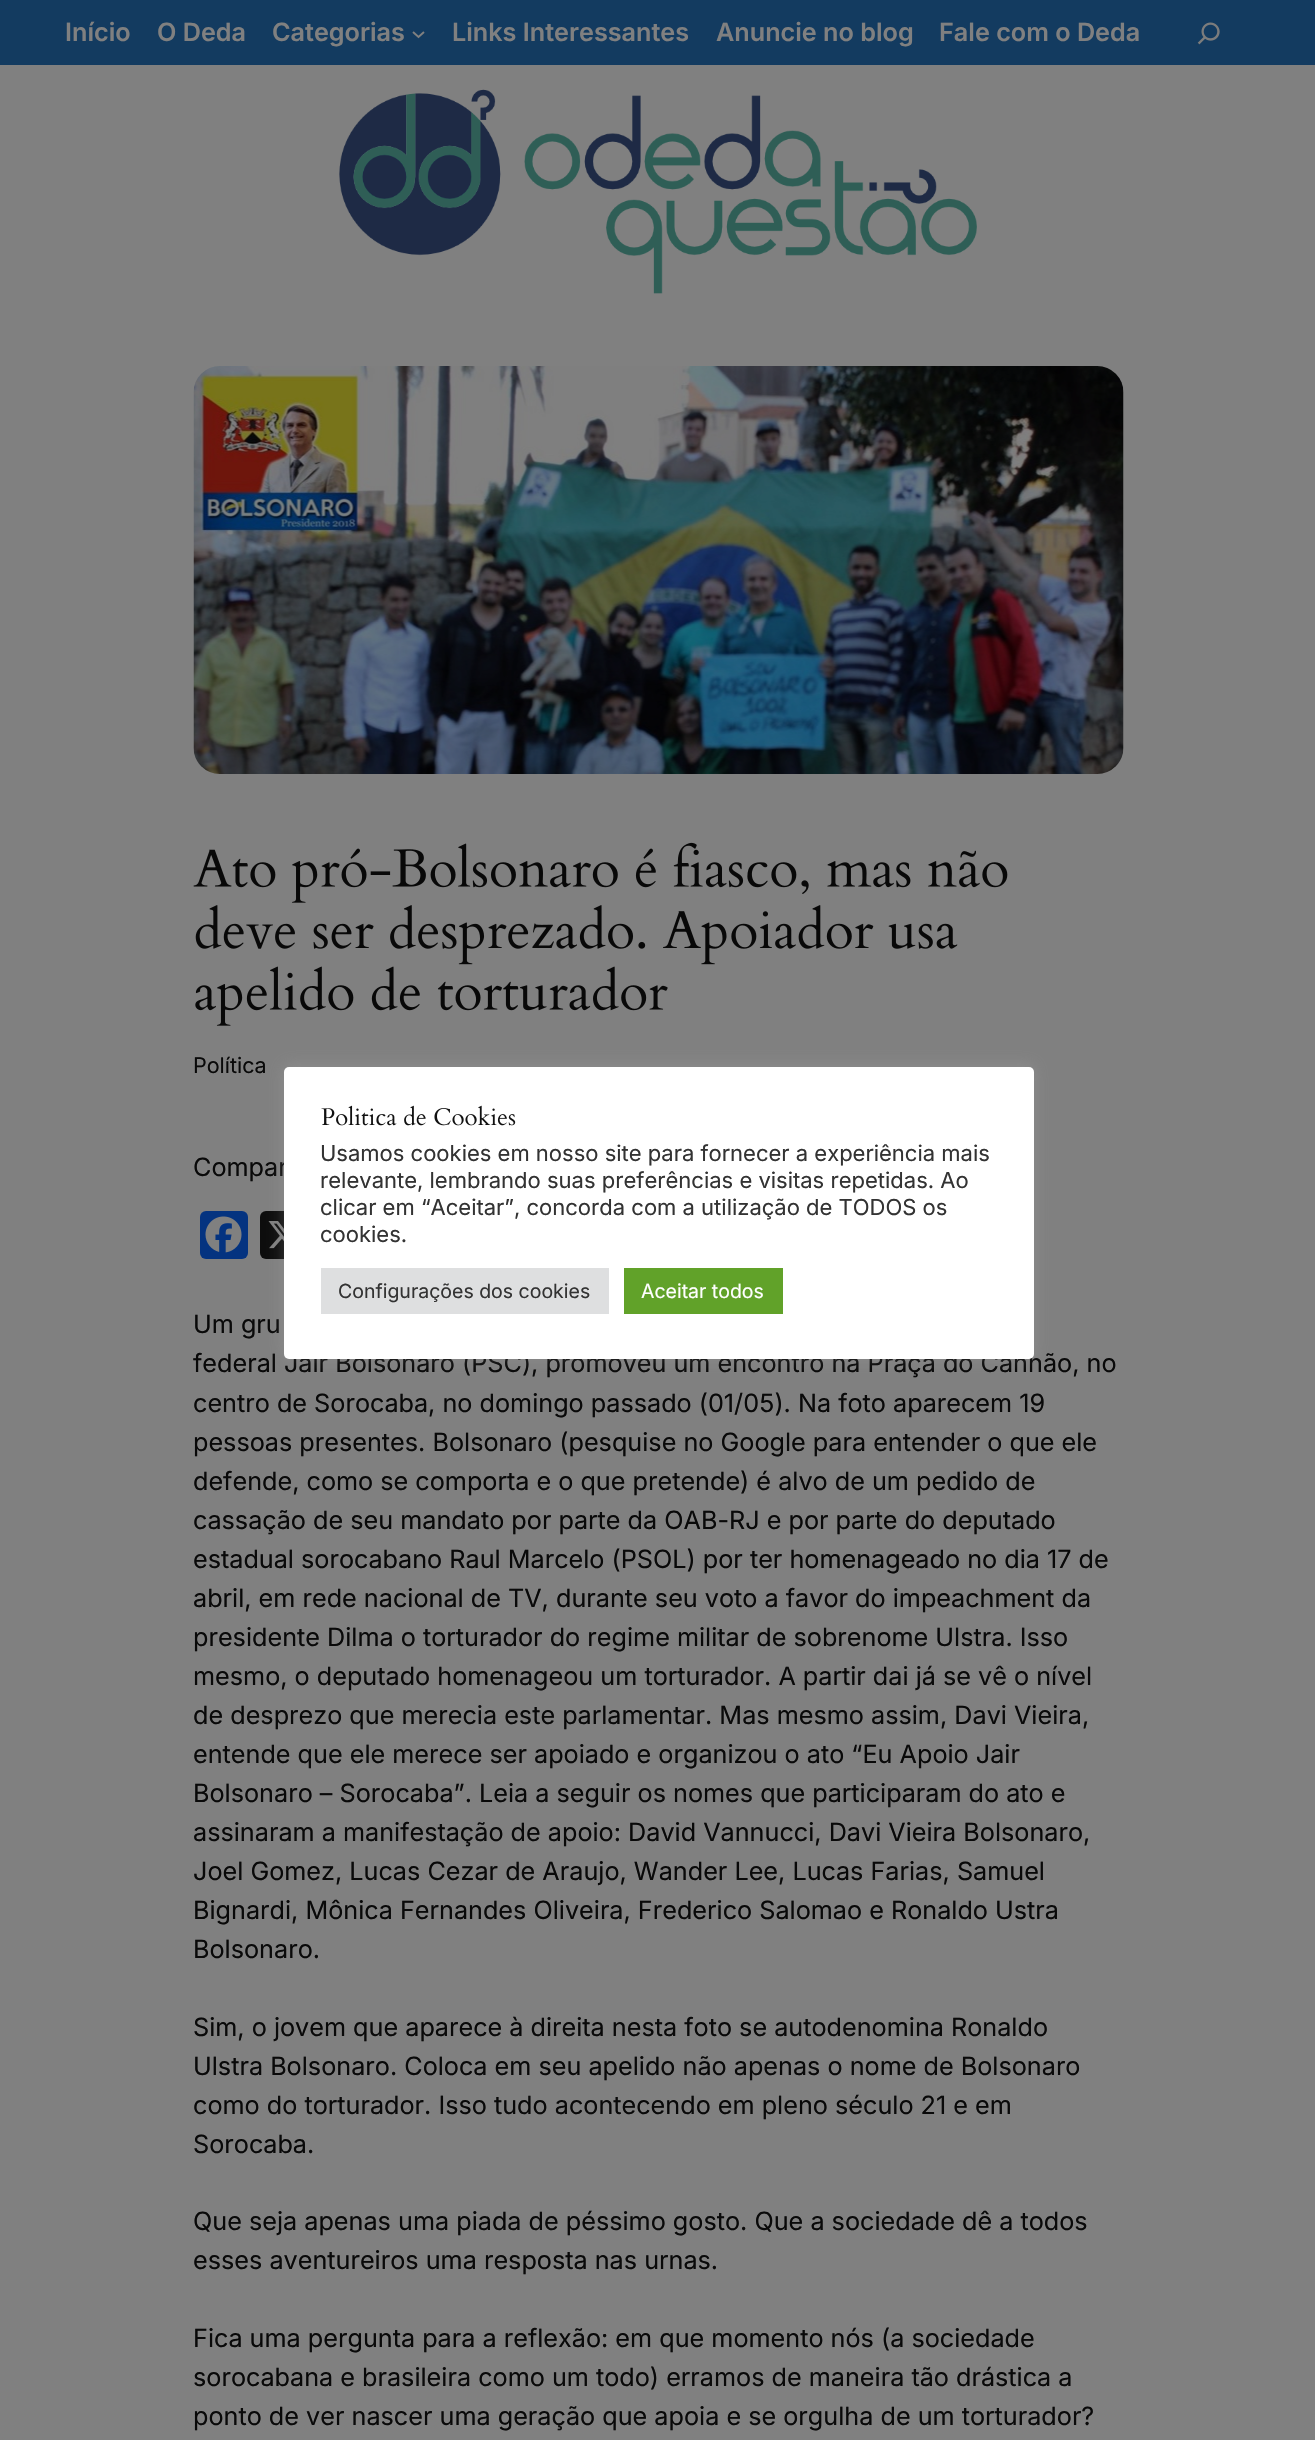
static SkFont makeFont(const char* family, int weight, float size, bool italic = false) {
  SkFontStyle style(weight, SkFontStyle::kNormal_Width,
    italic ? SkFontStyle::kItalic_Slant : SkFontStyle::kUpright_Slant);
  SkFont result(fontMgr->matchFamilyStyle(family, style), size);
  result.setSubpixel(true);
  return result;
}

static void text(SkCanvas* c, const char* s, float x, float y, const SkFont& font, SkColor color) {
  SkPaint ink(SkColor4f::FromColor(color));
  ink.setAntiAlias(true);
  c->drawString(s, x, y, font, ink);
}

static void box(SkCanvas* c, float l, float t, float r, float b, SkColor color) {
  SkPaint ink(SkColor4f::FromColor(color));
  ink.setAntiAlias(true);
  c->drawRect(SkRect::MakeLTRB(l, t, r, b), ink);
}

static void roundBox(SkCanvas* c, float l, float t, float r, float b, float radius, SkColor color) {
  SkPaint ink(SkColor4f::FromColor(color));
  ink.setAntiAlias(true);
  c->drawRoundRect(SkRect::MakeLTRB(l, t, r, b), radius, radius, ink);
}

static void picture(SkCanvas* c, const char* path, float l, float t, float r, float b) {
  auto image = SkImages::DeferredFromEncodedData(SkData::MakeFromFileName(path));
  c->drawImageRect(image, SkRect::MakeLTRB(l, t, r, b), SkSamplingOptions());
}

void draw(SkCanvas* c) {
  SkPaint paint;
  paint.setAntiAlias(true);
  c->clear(0xff808080);
  box(c, 0, 0, 1315, 65, 0xff133b60);
  SkFont face1 = makeFont("Inter", 600, 25.2f);
  text(c, "Início", 65, 41, face1, 0xff808080);
  text(c, "O Deda", 157, 41, face1, 0xff808080);
  text(c, "Categorias", 272, 41, face1, 0xff808080);
  paint.setStyle(SkPaint::kStroke_Style);
  paint.setStrokeWidth(1.9f);
  paint.setColor(0xff808080);
  c->drawPath(SkPathBuilder().moveTo(413, 32).lineTo(418.5f, 37).lineTo(424, 32).detach(), paint);
  text(c, "Links Interessantes", 452, 41, face1, 0xff808080);
  text(c, "Anuncie no blog", 716, 41, face1, 0xff808080);
  text(c, "Fale com o Deda", 939, 41, face1, 0xff808080);
  picture(c, "img_01.png", 1197, 22, 1220, 45);
  picture(c, "img_02.png", 339, 89, 977, 294);
  picture(c, "img_03.png", 193, 366, 1124, 774);
  picture(c, "img_04.png", 193, 842, 1008, 903);
  picture(c, "img_05.png", 195, 905, 958, 965);
  picture(c, "img_06.png", 195, 966, 668, 1026);
  SkFont face2 = makeFont("Inter", 400, 21.5f);
  text(c, "Política", 193, 1073, face2, 0xff090909);
  SkFont face3 = makeFont("Inter", 400, 25.2f);
  text(c, "Compar", 193, 1176, face3, 0xff090909);
  roundBox(c, 200, 1211, 248, 1259, 6, 0xff043380);
  picture(c, "img_07.png", 205, 1216, 242, 1253);
  roundBox(c, 260, 1211, 308, 1259, 6, 0xff0d0d0d);
  picture(c, "img_08.png", 268, 1221, 284, 1249);
  text(c, "Um gru", 193, 1333, face3, 0xff090909);
  text(c, "federal Jair Bolsonaro (PSC), promoveu um encontro na Praça do Canhão, no", 193, 1372, face3, 0xff090909);
  text(c, "centro de Sorocaba, no domingo passado (01/05). Na foto aparecem 19", 193, 1412, face3, 0xff090909);
  text(c, "pessoas presentes. Bolsonaro (pesquise no Google para entender o que ele", 193, 1451, face3, 0xff090909);
  text(c, "defende, como se comporta e o que pretende) é alvo de um pedido de", 193, 1490, face3, 0xff090909);
  text(c, "cassação de seu mandato por parte da OAB-RJ e por parte do deputado", 193, 1529, face3, 0xff090909);
  text(c, "estadual sorocabano Raul Marcelo (PSOL) por ter homenageado no dia 17 de", 193, 1568, face3, 0xff090909);
  text(c, "abril, em rede nacional de TV, durante seu voto a favor do impeachment da", 193, 1607, face3, 0xff090909);
  text(c, "presidente Dilma o torturador do regime militar de sobrenome Ulstra. Isso", 193, 1646, face3, 0xff090909);
  text(c, "mesmo, o deputado homenageou um torturador. A partir dai já se vê o nível", 193, 1685, face3, 0xff090909);
  text(c, "de desprezo que merecia este parlamentar. Mas mesmo assim, Davi Vieira,", 193, 1724, face3, 0xff090909);
  text(c, "entende que ele merece ser apoiado e organizou o ato “Eu Apoio Jair", 193, 1763, face3, 0xff090909);
  text(c, "Bolsonaro – Sorocaba”. Leia a seguir os nomes que participaram do ato e", 193, 1802, face3, 0xff090909);
  text(c, "assinaram a manifestação de apoio: David Vannucci, Davi Vieira Bolsonaro,", 193, 1841, face3, 0xff090909);
  text(c, "Joel Gomez, Lucas Cezar de Araujo, Wander Lee, Lucas Farias, Samuel", 193, 1880, face3, 0xff090909);
  text(c, "Bignardi, Mônica Fernandes Oliveira, Frederico Salomao e Ronaldo Ustra", 193, 1919, face3, 0xff090909);
  text(c, "Bolsonaro.", 193, 1958, face3, 0xff090909);
  text(c, "Sim, o jovem que aparece à direita nesta foto se autodenomina Ronaldo", 193, 2036, face3, 0xff090909);
  text(c, "Ulstra Bolsonaro. Coloca em seu apelido não apenas o nome de Bolsonaro", 193, 2075, face3, 0xff090909);
  text(c, "como do torturador. Isso tudo acontecendo em pleno século 21 e em", 193, 2114, face3, 0xff090909);
  text(c, "Sorocaba.", 193, 2153, face3, 0xff090909);
  text(c, "Que seja apenas uma piada de péssimo gosto. Que a sociedade dê a todos", 193, 2230, face3, 0xff090909);
  text(c, "esses aventureiros uma resposta nas urnas.", 193, 2269, face3, 0xff090909);
  text(c, "Fica uma pergunta para a reflexão: em que momento nós (a sociedade", 193, 2347, face3, 0xff090909);
  text(c, "sorocabana e brasileira como um todo) erramos de maneira tão drástica a", 193, 2386, face3, 0xff090909);
  text(c, "ponto de ver nascer uma geração que apoia e se orgulha de um torturador?", 193, 2425, face3, 0xff090909);
  paint.setStyle(SkPaint::kFill_Style);
  paint.setColor(0x4dacabab);
  paint.setMaskFilter(SkMaskFilter::MakeBlur(kNormal_SkBlurStyle, 7.5f));
  c->drawRoundRect(SkRect::MakeLTRB(284, 1065, 1034, 1358), 5, 5, paint);
  paint.setMaskFilter(nullptr);
  roundBox(c, 284, 1067, 1034, 1359, 5, 0xffffffff);
  picture(c, "img_09.png", 321, 1105, 516, 1126);
  SkFont face4 = makeFont("Inter", 400, 22);
  text(c, "Usamos cookies em nosso site para fornecer a experiência mais", 320, 1161, face4, 0xff333333);
  text(c, "relevante, lembrando suas preferências e visitas repetidas. Ao", 320, 1188, face4, 0xff333333);
  text(c, "clicar em “Aceitar”, concorda com a utilização de TODOS os", 320, 1215, face4, 0xff333333);
  text(c, "cookies.", 320, 1242, face4, 0xff333333);
  box(c, 321, 1268, 609, 1314, 0xffdedfe0);
  SkFont face5 = makeFont("Inter", 400, 19.5f);
  text(c, "Configurações dos cookies", 338, 1298, face5, 0xff333333);
  box(c, 624, 1268, 783, 1314, 0xff61a229);
  text(c, "Aceitar todos", 641, 1298, face5, 0xffffffff);
}
